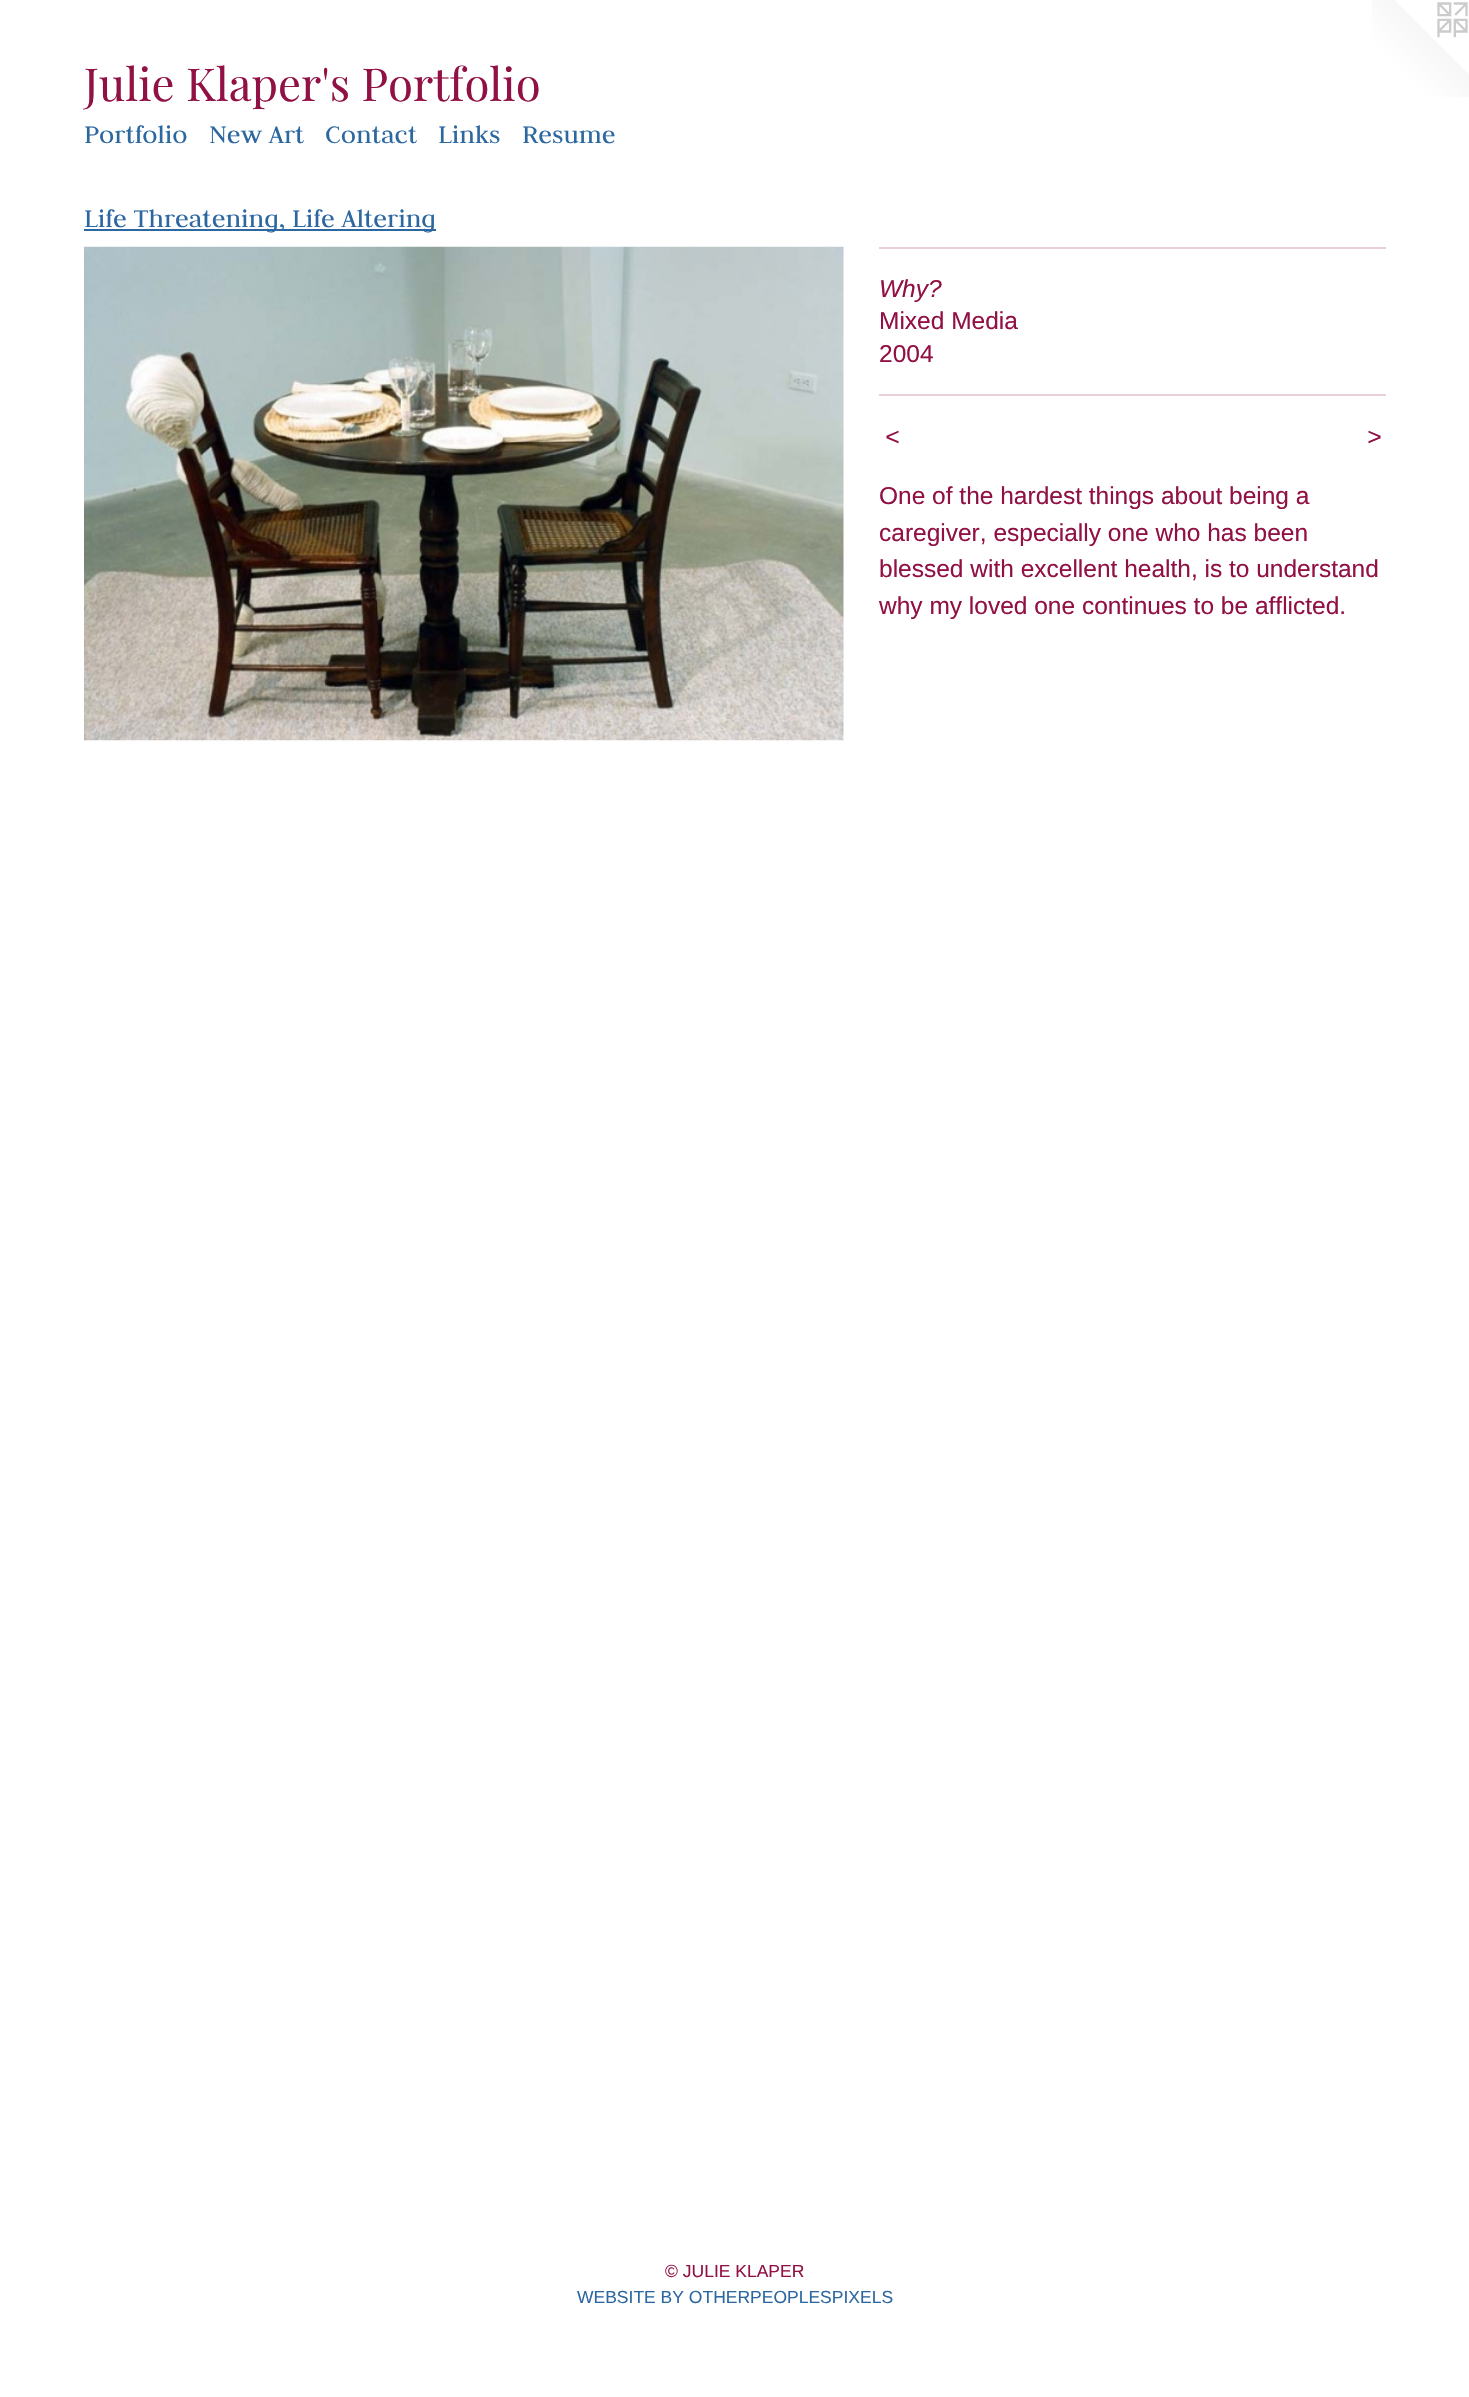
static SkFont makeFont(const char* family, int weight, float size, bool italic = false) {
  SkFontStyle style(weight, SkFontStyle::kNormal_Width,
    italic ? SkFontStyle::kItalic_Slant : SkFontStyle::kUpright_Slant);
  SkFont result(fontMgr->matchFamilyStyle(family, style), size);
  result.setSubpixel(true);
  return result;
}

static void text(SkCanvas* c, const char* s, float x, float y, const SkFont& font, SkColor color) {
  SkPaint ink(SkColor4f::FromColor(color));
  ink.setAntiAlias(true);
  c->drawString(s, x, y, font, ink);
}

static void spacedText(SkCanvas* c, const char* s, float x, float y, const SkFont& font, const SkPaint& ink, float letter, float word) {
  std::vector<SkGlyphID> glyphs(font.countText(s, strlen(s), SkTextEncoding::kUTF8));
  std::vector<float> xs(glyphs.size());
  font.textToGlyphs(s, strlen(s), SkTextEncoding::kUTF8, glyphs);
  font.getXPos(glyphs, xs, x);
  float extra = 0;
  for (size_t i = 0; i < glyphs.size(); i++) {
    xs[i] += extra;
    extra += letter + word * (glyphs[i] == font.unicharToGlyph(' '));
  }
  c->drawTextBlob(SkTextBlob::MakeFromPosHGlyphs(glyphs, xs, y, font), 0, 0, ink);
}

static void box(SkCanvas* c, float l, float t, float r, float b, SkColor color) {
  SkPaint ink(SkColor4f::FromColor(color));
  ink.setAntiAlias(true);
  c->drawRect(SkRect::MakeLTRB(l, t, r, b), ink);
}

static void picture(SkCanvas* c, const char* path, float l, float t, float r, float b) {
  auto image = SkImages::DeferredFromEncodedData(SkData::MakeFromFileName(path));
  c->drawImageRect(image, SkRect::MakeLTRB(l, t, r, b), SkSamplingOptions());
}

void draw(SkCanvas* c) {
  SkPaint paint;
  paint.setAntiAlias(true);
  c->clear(0xffffffff);
  SkFont face1 = makeFont("Playfair Display", 400, 45.5f);
  text(c, "Julie Klaper's Portfolio", 84, 101, face1, 0xff921145);
  picture(c, "img_01.png", 1372, 0, 1469, 97);
  SkFont face2 = makeFont("Judson", 400, 28);
  text(c, "Portfolio", 84, 143, face2, 0xff2c67a0);
  text(c, "New Art", 209, 143, face2, 0xff2c67a0);
  text(c, "Contact", 325, 143, face2, 0xff2c67a0);
  text(c, "Links", 438, 143, face2, 0xff2c67a0);
  text(c, "Resume", 522, 143, face2, 0xff2c67a0);
  box(c, 84, 229, 436, 231, 0xff2c67a0);
  text(c, "Life Threatening, Life Altering", 84, 227, face2, 0xff2c67a0);
  picture(c, "img_02.png", 84, 246, 844, 741);
  box(c, 879, 247, 1386, 249, 0xffe9cfda);
  SkFont face3 = makeFont("Liberation Sans", 400, 24.5f, true);
  text(c, "Why?", 879, 297, face3, 0xff921145);
  SkFont face4 = makeFont("Liberation Sans", 400, 24.5f);
  text(c, "Mixed Media", 879, 329, face4, 0xff921145);
  text(c, "2004", 879, 362, face4, 0xff921145);
  box(c, 879, 394, 1386, 396, 0xffe9cfda);
  paint.setColor(0xff921145);
  spacedText(c, "<", 885, 445, face3, paint, 2, 0);
  spacedText(c, ">", 1367, 445, face3, paint, 2, 0);
  text(c, "One of the hardest things about being a", 879, 504, face4, 0xff921145);
  text(c, "caregiver, especially one who has been", 879, 541, face4, 0xff921145);
  text(c, "blessed with excellent health, is to understand", 879, 577, face4, 0xff921145);
  text(c, "why my loved one continues to be afflicted.", 879, 614, face4, 0xff921145);
  SkFont face5 = makeFont("Liberation Sans", 400, 17.5f);
  text(c, "© JULIE KLAPER", 665, 2277, face5, 0xff921145);
  text(c, "WEBSITE BY OTHERPEOPLESPIXELS", 577, 2303, face5, 0xff2c67a0);
}
